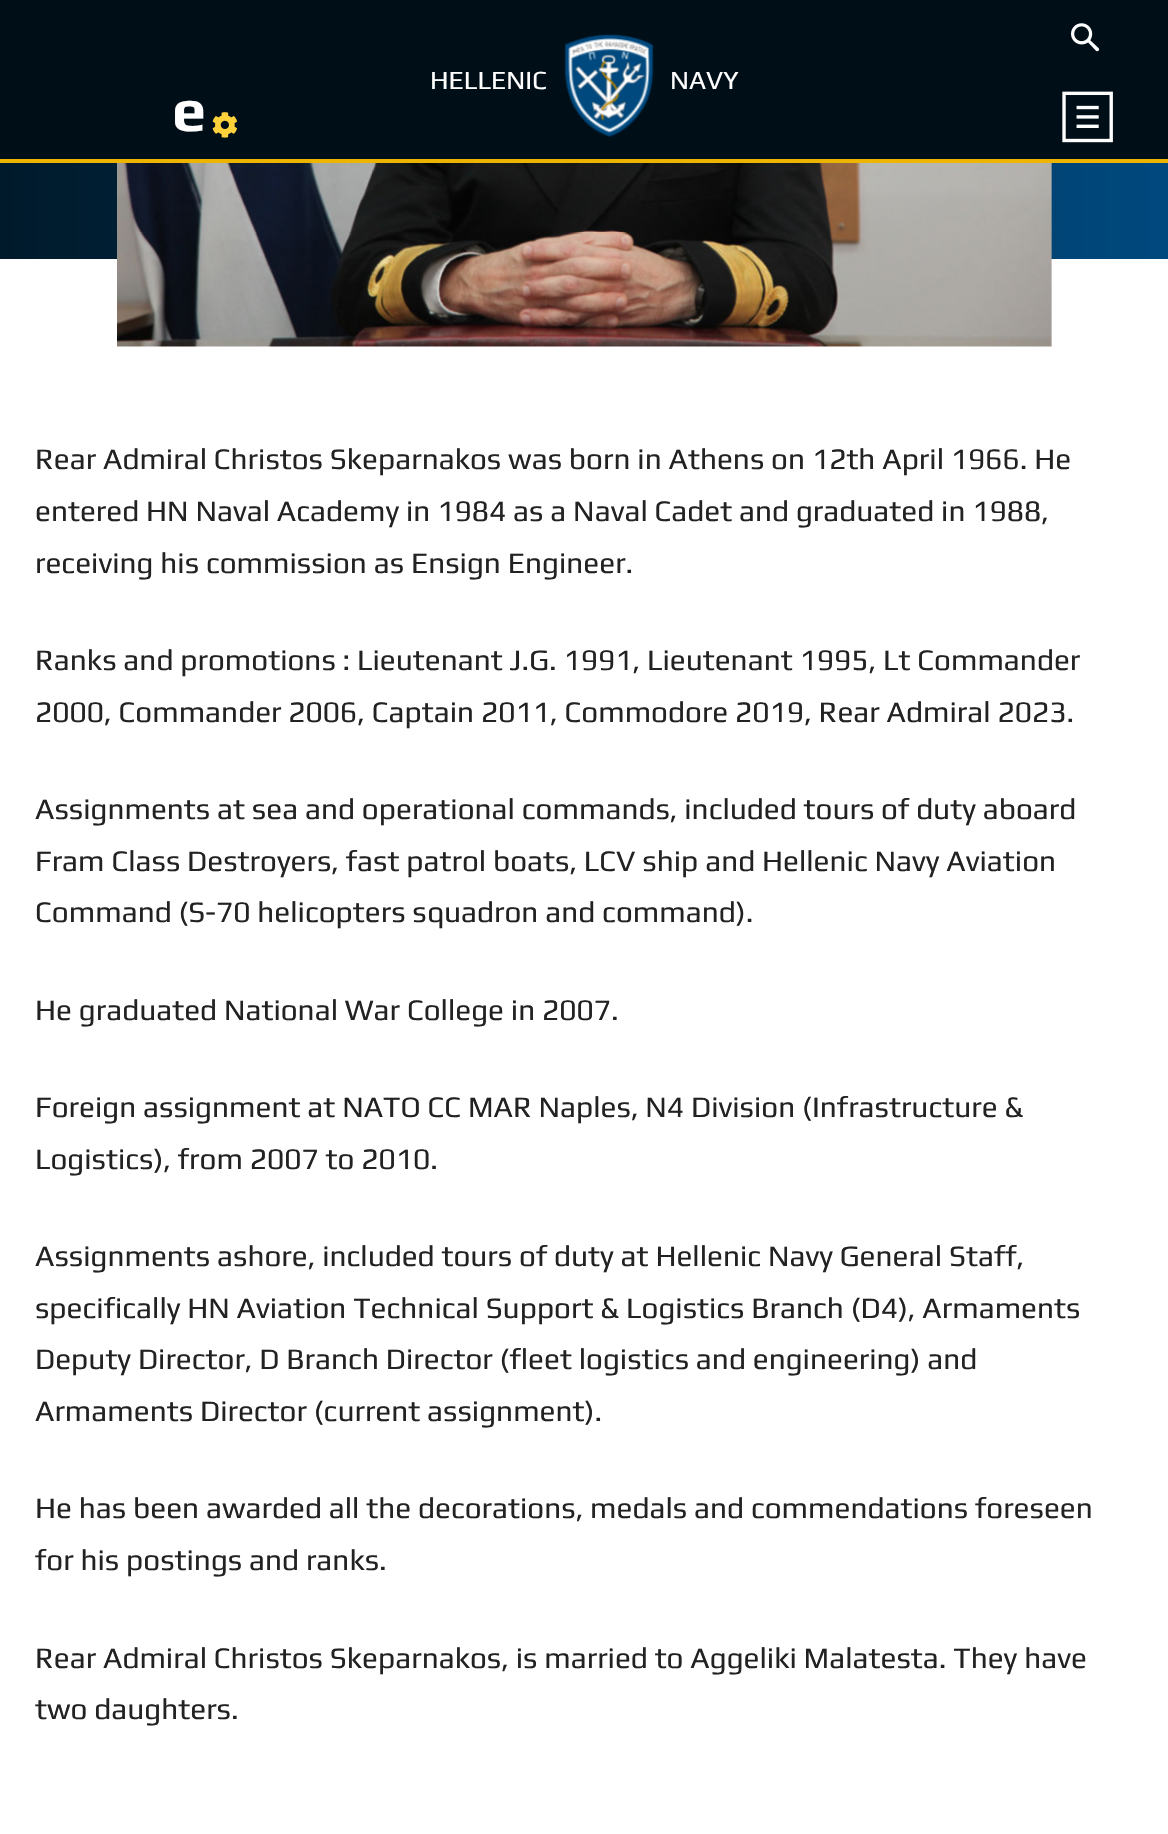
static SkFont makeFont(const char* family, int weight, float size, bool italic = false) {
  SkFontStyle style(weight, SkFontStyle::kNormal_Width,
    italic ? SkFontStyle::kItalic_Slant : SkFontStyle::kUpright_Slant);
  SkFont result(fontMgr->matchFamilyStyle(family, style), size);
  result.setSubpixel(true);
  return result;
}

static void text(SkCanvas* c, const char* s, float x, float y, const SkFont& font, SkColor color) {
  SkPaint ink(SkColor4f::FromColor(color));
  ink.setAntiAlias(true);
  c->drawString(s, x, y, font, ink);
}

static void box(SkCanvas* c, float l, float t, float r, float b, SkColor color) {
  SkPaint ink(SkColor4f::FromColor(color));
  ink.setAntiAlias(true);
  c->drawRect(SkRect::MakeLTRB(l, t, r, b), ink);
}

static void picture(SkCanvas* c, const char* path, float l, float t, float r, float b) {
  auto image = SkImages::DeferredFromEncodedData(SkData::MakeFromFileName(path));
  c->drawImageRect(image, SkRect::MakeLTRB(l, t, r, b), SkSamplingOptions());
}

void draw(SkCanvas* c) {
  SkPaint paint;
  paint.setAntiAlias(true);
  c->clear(0xffffffff);
  box(c, 0, 0, 1168, 159, 0xff000e18);
  picture(c, "img_01.png", 1071, 23, 1100, 52);
  SkFont face1 = makeFont("Play", 400, 26.25f);
  text(c, "HELLENIC", 430, 89, face1, 0xffffffff);
  picture(c, "img_02.png", 564, 34, 654, 137);
  text(c, "NAVY", 670, 89, face1, 0xffffffff);
  SkFont face2 = makeFont("Play", 700, 61);
  text(c, "e", 172, 131, face2, 0xffffffff);
  picture(c, "img_03.png", 212, 112, 237, 138);
  picture(c, "img_04.png", 1062, 91, 1113, 143);
  box(c, 0, 159, 1168, 163, 0xffedb500);
  {
    const SkColor colors[] = {0xff001a2b, 0xff00497e};
    const float stops[] = {0, 1};
    const SkPoint ends[] = {{0, -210}, {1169, -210}};
    paint.setShader(SkGradientShader::MakeLinear(ends, colors, stops, 2, SkTileMode::kClamp));
    paint.setAlpha(255);
  }
  c->drawRect(SkRect::MakeLTRB(0, 163, 1168, 259), paint);
  picture(c, "img_05.png", 117, 163, 1052, 347);
  SkFont face3 = makeFont("Play", 400, 29.75f);
  text(c, "Rear Admiral Christos Skeparnakos was born in Athens on 12th April 1966. He", 35, 469, face3, 0xff222222);
  text(c, "entered HN Naval Academy in 1984 as a Naval Cadet and graduated in 1988,", 35, 521, face3, 0xff222222);
  text(c, "receiving his commission as Ensign Engineer.", 35, 573, face3, 0xff222222);
  text(c, "Ranks and promotions : Lieutenant J.G. 1991, Lieutenant 1995, Lt Commander", 35, 670, face3, 0xff222222);
  text(c, "2000, Commander 2006, Captain 2011, Commodore 2019, Rear Admiral 2023.", 35, 722, face3, 0xff222222);
  text(c, "Assignments at sea and operational commands, included tours of duty aboard", 35, 819, face3, 0xff222222);
  text(c, "Fram Class Destroyers, fast patrol boats, LCV ship and Hellenic Navy Aviation", 35, 871, face3, 0xff222222);
  text(c, "Command (S-70 helicopters squadron and command).", 35, 922, face3, 0xff222222);
  text(c, "He graduated National War College in 2007.", 35, 1020, face3, 0xff222222);
  text(c, "Foreign assignment at NATO CC MAR Naples, N4 Division (Infrastructure &", 35, 1117, face3, 0xff222222);
  text(c, "Logistics), from 2007 to 2010.", 35, 1169, face3, 0xff222222);
  text(c, "Assignments ashore, included tours of duty at Hellenic Navy General Staff,", 35, 1266, face3, 0xff222222);
  text(c, "specifically HN Aviation Technical Support & Logistics Branch (D4), Armaments", 35, 1318, face3, 0xff222222);
  text(c, "Deputy Director, D Branch Director (fleet logistics and engineering) and", 35, 1369, face3, 0xff222222);
  text(c, "Armaments Director (current assignment).", 35, 1421, face3, 0xff222222);
  text(c, "He has been awarded all the decorations, medals and commendations foreseen", 35, 1518, face3, 0xff222222);
  text(c, "for his postings and ranks.", 35, 1570, face3, 0xff222222);
  text(c, "Rear Admiral Christos Skeparnakos, is married to Aggeliki Malatesta. They have", 35, 1668, face3, 0xff222222);
  text(c, "two daughters.", 35, 1719, face3, 0xff222222);
}
